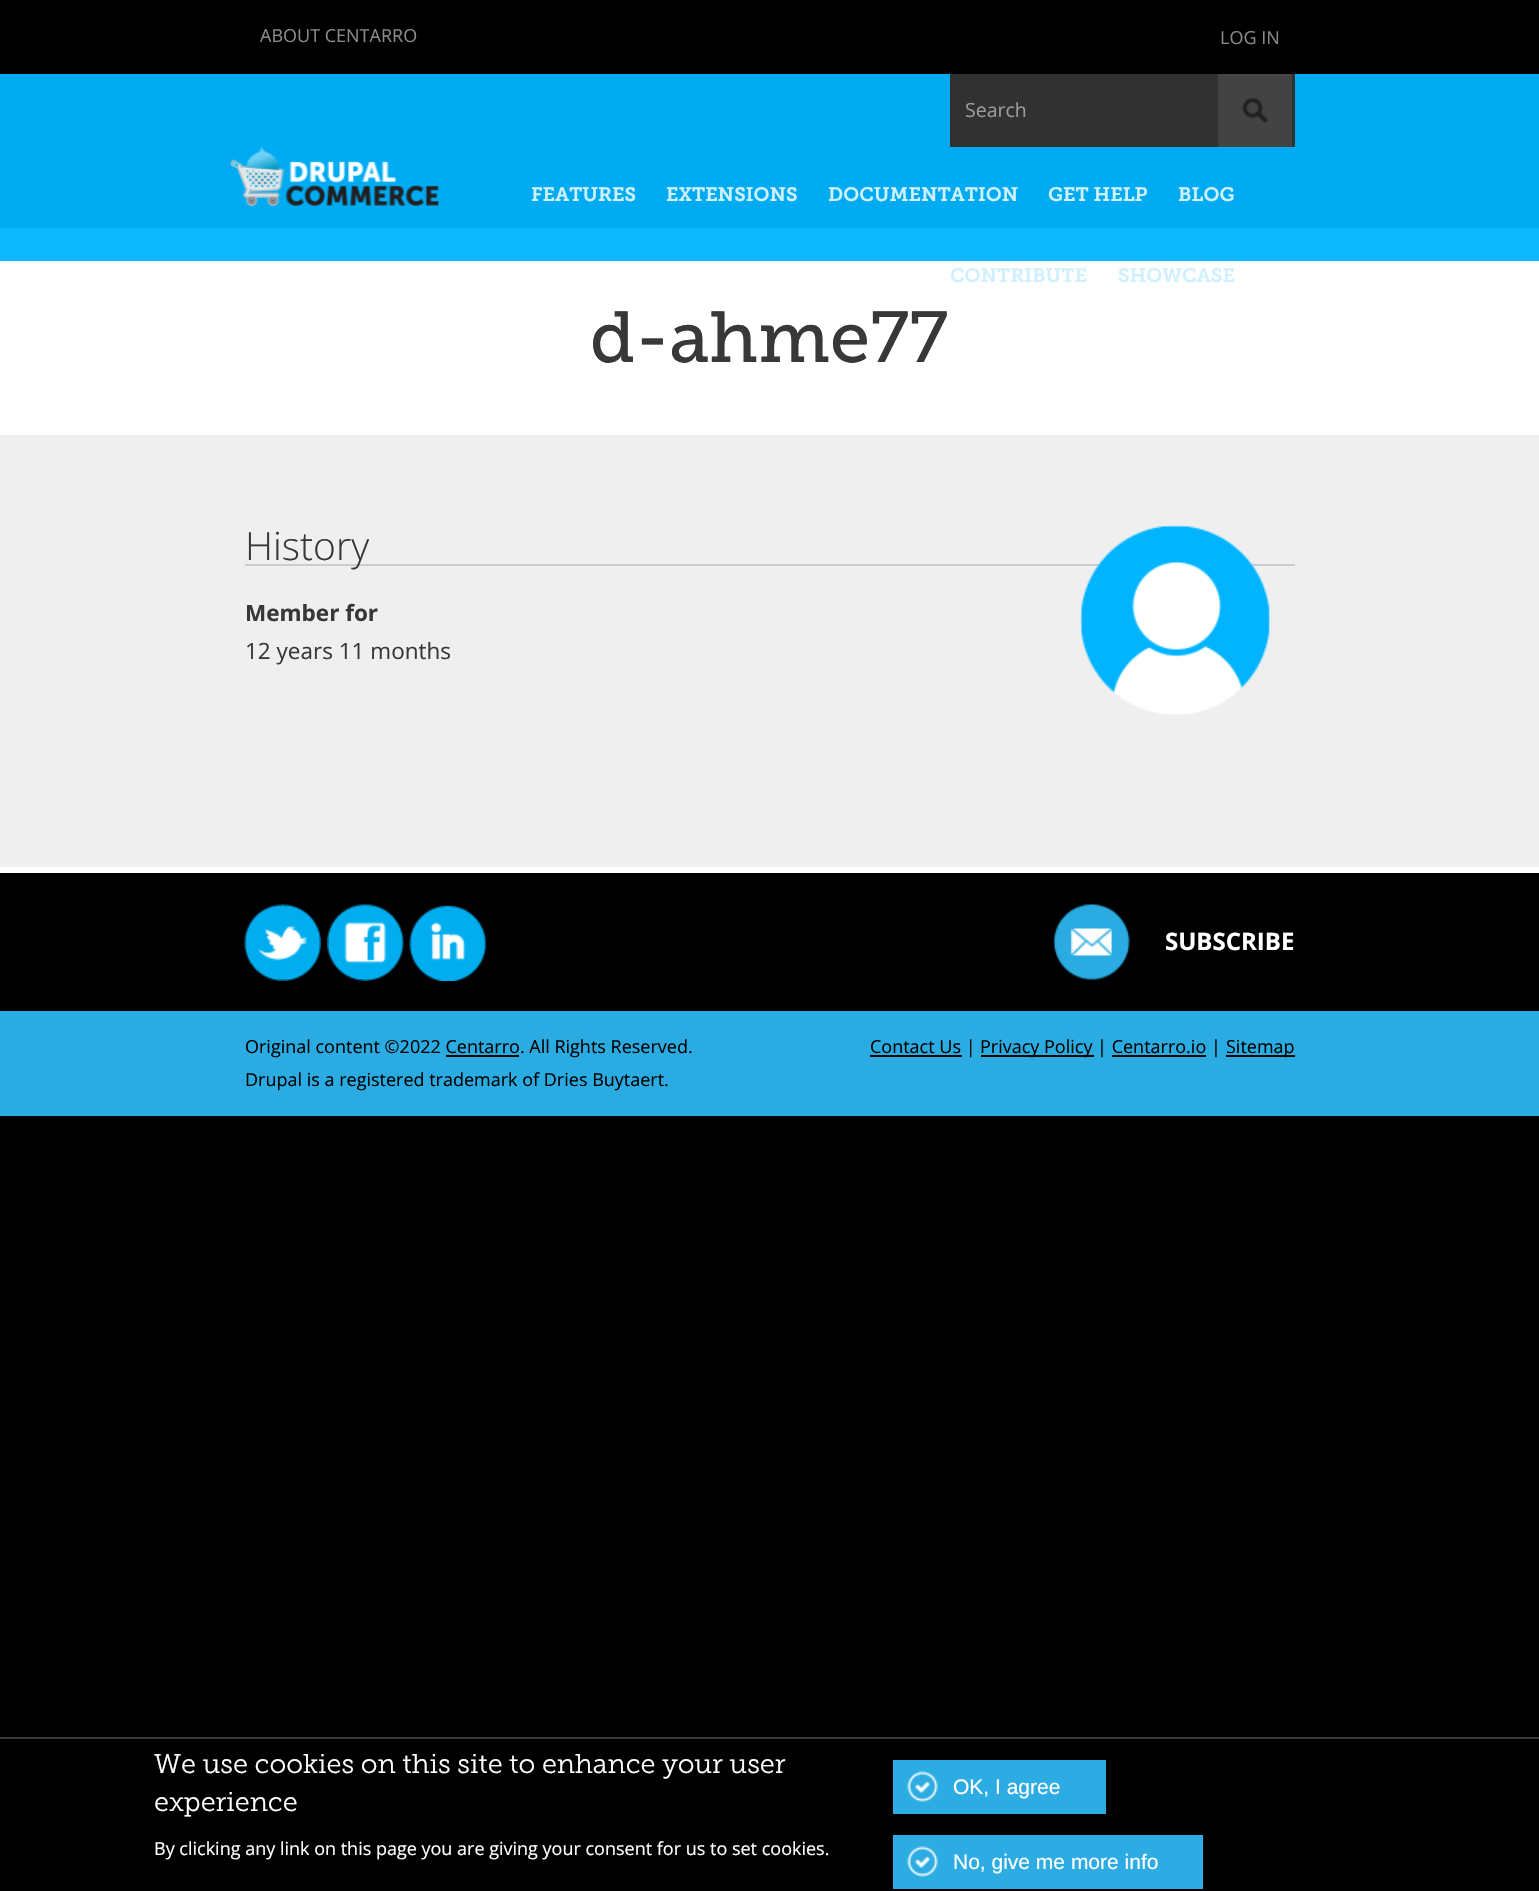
static SkFont makeFont(const char* family, int weight, float size, bool italic = false) {
  SkFontStyle style(weight, SkFontStyle::kNormal_Width,
    italic ? SkFontStyle::kItalic_Slant : SkFontStyle::kUpright_Slant);
  SkFont result(fontMgr->matchFamilyStyle(family, style), size);
  result.setSubpixel(true);
  return result;
}

static void text(SkCanvas* c, const char* s, float x, float y, const SkFont& font, SkColor color) {
  SkPaint ink(SkColor4f::FromColor(color));
  ink.setAntiAlias(true);
  c->drawString(s, x, y, font, ink);
}

static void box(SkCanvas* c, float l, float t, float r, float b, SkColor color) {
  SkPaint ink(SkColor4f::FromColor(color));
  ink.setAntiAlias(true);
  c->drawRect(SkRect::MakeLTRB(l, t, r, b), ink);
}

static void picture(SkCanvas* c, const char* path, float l, float t, float r, float b) {
  auto image = SkImages::DeferredFromEncodedData(SkData::MakeFromFileName(path));
  c->drawImageRect(image, SkRect::MakeLTRB(l, t, r, b), SkSamplingOptions());
}

void draw(SkCanvas* c) {
  SkPaint paint;
  paint.setAntiAlias(true);
  c->clear(0xff000000);
  box(c, 0, 74, 1539, 228, 0xff00abf2);
  SkFont face1 = makeFont("Open Sans", 400, 18);
  text(c, "ABOUT CENTARRO", 260, 42, face1, 0xff8b8989);
  text(c, "LOG IN", 1220, 44, face1, 0xff8b8989);
  box(c, 950, 74, 1295, 147, 0xff323131);
  SkFont face2 = makeFont("Open Sans", 400, 19.5f);
  text(c, "Search", 965, 117, face2, 0xff9d9a9a);
  box(c, 1218, 74, 1292, 147, 0xff444343);
  picture(c, "img_01.png", 1242, 97, 1268, 123);
  picture(c, "img_02.png", 230, 147, 439, 206);
  SkFont face3 = makeFont("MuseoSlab", 600, 19.5f);
  text(c, "FEATURES", 531, 201, face3, 0xffcff1ff);
  text(c, "EXTENSIONS", 666, 201, face3, 0xffcff1ff);
  text(c, "DOCUMENTATION", 828, 201, face3, 0xffcff1ff);
  text(c, "GET HELP", 1048, 201, face3, 0xffcff1ff);
  text(c, "BLOG", 1178, 201, face3, 0xffcff1ff);
  box(c, 0, 261, 1539, 435, 0xffffffff);
  text(c, "CONTRIBUTE", 950, 282, face3, 0xffcff1ff);
  text(c, "SHOWCASE", 1118, 282, face3, 0xffcff1ff);
  box(c, 0, 228, 1539, 261, 0xff0db8ff);
  SkFont face4 = makeFont("MuseoSlab", 400, 72);
  text(c, "d-ahme77", 590, 362, face4, 0xff383838);
  box(c, 0, 435, 1539, 867, 0xffefefef);
  box(c, 245, 564, 1295, 566, 0xffcccccc);
  SkFont face5 = makeFont("Open Sans", 300, 39);
  text(c, "History", 245, 560, face5, 0xff383838);
  picture(c, "img_03.png", 1080, 525, 1271, 715);
  SkFont face6 = makeFont("Open Sans", 700, 22.5f);
  text(c, "Member for", 245, 621, face6, 0xff383838);
  SkFont face7 = makeFont("Open Sans", 400, 22.5f);
  text(c, "12 years 11 months", 245, 659, face7, 0xff383838);
  box(c, 0, 867, 1539, 873, 0xffffffff);
  picture(c, "img_04.png", 244, 904, 321, 981);
  picture(c, "img_05.png", 327, 904, 404, 981);
  picture(c, "img_06.png", 409, 905, 486, 981);
  picture(c, "img_07.png", 1053, 904, 1130, 980);
  SkFont face8 = makeFont("Open Sans", 700, 24);
  text(c, "SUBSCRIBE", 1165, 950, face8, 0xffffffff);
  box(c, 0, 1011, 1539, 1116, 0xff2aabe2);
  text(c, "Original content ©2022 Centarro. All Rights Reserved.", 245, 1053, face1, 0xff000000);
  box(c, 446, 1055, 519, 1057, 0xff000000);
  text(c, "Drupal is a registered trademark of Dries Buytaert.", 245, 1086, face1, 0xff000000);
  box(c, 870, 1055, 962, 1057, 0xff000000);
  text(c, "Contact Us |", 870, 1053, face1, 0xff000000);
  box(c, 981, 1055, 1094, 1057, 0xff000000);
  text(c, "Privacy Policy | Centarro.io |", 980, 1053, face1, 0xff000000);
  box(c, 1226, 1055, 1295, 1057, 0xff000000);
  text(c, "Sitemap", 1226, 1053, face1, 0xff000000);
  box(c, 1112, 1055, 1206, 1057, 0xff000000);
  box(c, 0, 1737, 1539, 1739, 0xff393737);
  SkFont face9 = makeFont("MuseoSlab", 300, 27);
  text(c, "We use cookies on this site to enhance your user", 154, 1773, face9, 0xffffffff);
  text(c, "experience", 154, 1811, face9, 0xffffffff);
  text(c, "By clicking any link on this page you are giving your consent for us to set cookies.", 154, 1855, face1, 0xffffffff);
  box(c, 893, 1760, 1106, 1814, 0xff2cace3);
  picture(c, "img_08.png", 907, 1771, 938, 1802);
  SkFont face10 = makeFont("Liberation Sans", 400, 21);
  text(c, "OK, I agree", 953, 1794, face10, 0xffffffff);
  box(c, 893, 1835, 1203, 1889, 0xff2cace3);
  picture(c, "img_08.png", 907, 1846, 938, 1877);
  text(c, "No, give me more info", 953, 1869, face10, 0xffffffff);
}
